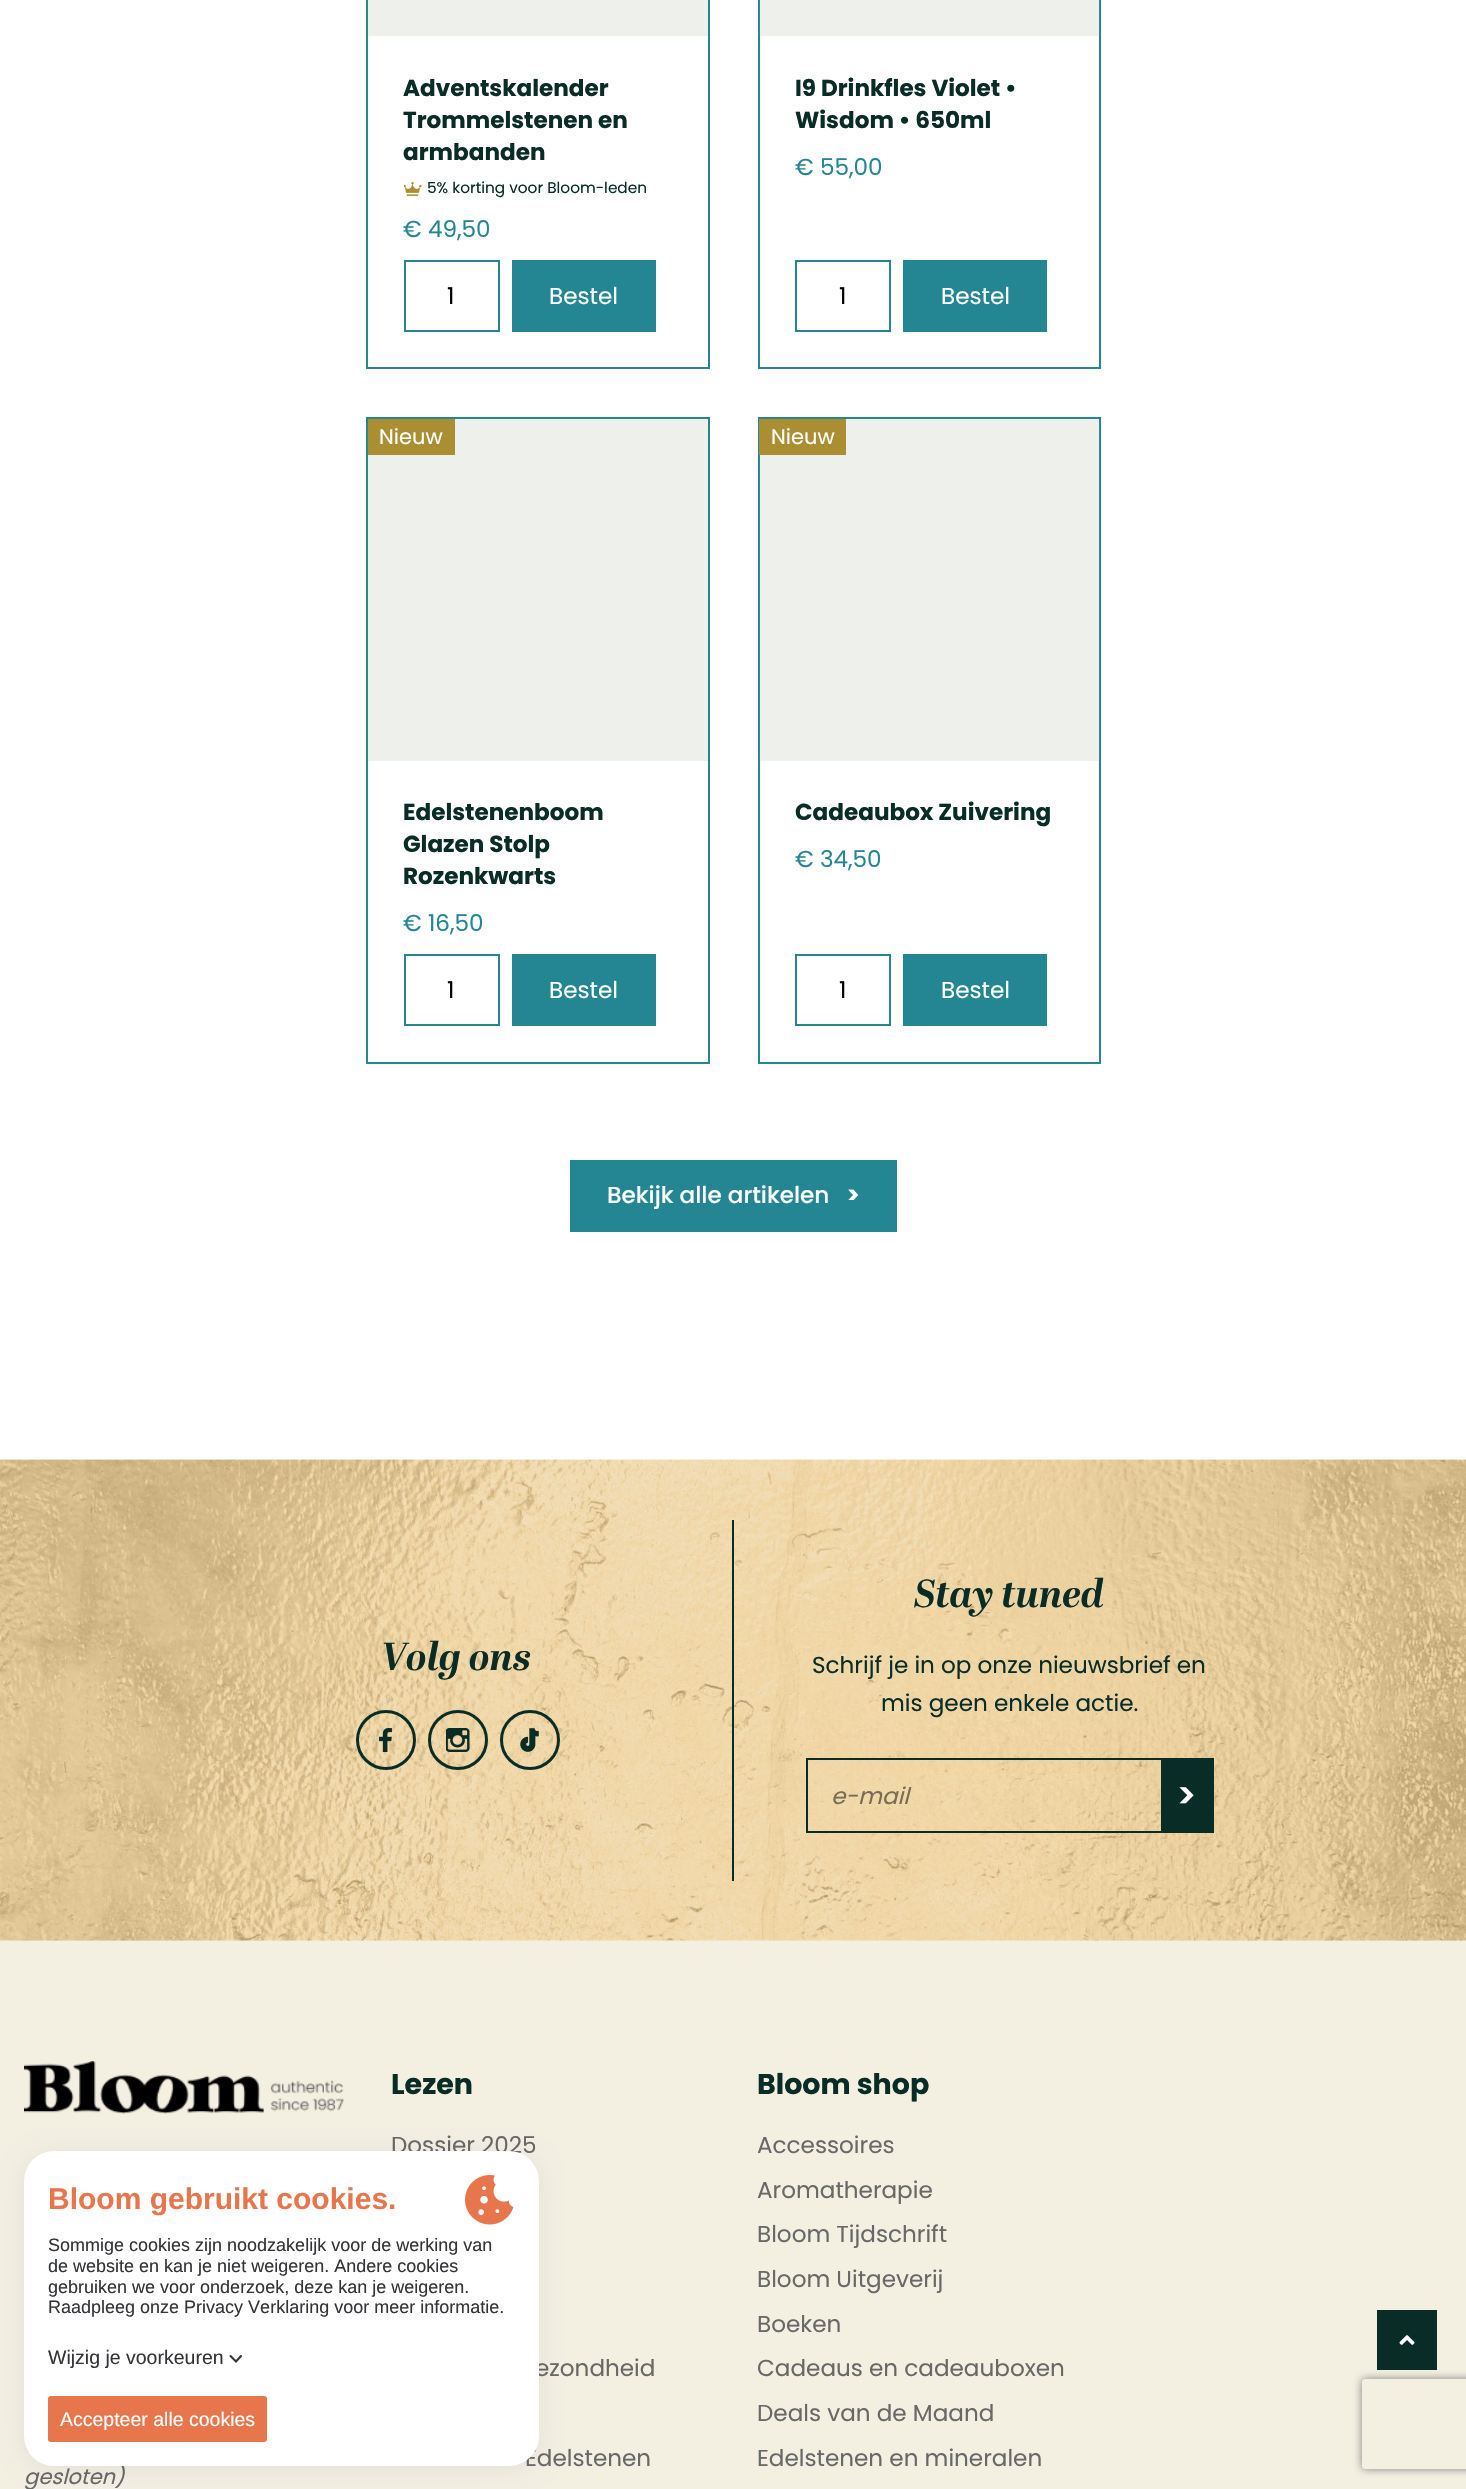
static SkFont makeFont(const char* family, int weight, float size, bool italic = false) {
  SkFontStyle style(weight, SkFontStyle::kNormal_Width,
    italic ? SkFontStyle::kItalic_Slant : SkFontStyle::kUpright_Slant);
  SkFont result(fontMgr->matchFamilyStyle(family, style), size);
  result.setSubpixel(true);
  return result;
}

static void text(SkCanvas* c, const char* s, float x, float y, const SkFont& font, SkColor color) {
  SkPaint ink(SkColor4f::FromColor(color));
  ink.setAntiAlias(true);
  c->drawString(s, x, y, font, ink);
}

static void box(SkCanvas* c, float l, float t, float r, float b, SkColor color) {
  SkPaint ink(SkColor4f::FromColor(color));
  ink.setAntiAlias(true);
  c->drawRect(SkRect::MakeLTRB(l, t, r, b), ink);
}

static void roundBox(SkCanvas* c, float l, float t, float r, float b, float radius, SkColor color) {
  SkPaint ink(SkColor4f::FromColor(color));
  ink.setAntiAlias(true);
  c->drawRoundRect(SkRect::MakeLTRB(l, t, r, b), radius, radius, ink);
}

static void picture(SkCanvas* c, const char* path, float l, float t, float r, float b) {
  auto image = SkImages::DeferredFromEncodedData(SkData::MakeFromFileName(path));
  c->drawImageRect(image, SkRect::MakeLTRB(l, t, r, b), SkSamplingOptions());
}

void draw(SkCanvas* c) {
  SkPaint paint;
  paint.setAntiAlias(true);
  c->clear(0xffffffff);
  paint.setStyle(SkPaint::kStroke_Style);
  paint.setStrokeWidth(2);
  paint.setColor(0xff248693);
  c->drawRect(SkRect::MakeLTRB(367, -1, 709, 368), paint);
  box(c, 368, 0, 708, 36, 0xffeef0ec);
  SkFont face1 = makeFont("Poppins", 700, 23.1f);
  text(c, "Adventskalender", 403, 96, face1, 0xff092c26);
  text(c, "Trommelstenen en", 403, 128, face1, 0xff092c26);
  text(c, "armbanden", 403, 160, face1, 0xff092c26);
  picture(c, "img_01.png", 404, 182, 422, 196);
  SkFont face2 = makeFont("Poppins", 400, 15.3f);
  text(c, "5% korting voor Bloom-leden", 427, 193, face2, 0xff092c26);
  SkFont face3 = makeFont("Poppins", 400, 23.1f);
  text(c, "€ 49,50", 403, 237, face3, 0xff248693);
  c->drawRect(SkRect::MakeLTRB(405, 261, 499, 331), paint);
  text(c, "1", 447, 304, face3, 0xff000000);
  box(c, 512, 260, 656, 332, 0xff248693);
  text(c, "Bestel", 549, 304, face3, 0xffffffff);
  c->drawRect(SkRect::MakeLTRB(759, -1, 1100, 368), paint);
  box(c, 759, 0, 1100, 36, 0x268c9b7d);
  text(c, "I9 Drinkfles Violet •", 795, 96, face1, 0xff092c26);
  text(c, "Wisdom • 650ml", 795, 128, face1, 0xff092c26);
  text(c, "€ 55,00", 795, 175, face3, 0xff248693);
  c->drawRect(SkRect::MakeLTRB(796, 261, 890, 331), paint);
  text(c, "1", 839, 304, face3, 0xff000000);
  box(c, 903, 260, 1047, 332, 0xff248693);
  text(c, "Bestel", 941, 304, face3, 0xffffffff);
  c->drawRect(SkRect::MakeLTRB(367, 418, 709, 1063), paint);
  box(c, 368, 419, 708, 761, 0xffeef0ec);
  box(c, 368, 419, 455, 455, 0xffaa8e31);
  SkFont face4 = makeFont("Poppins", 400, 21);
  text(c, "Nieuw", 379, 444, face4, 0xffffffff);
  text(c, "Edelstenenboom", 403, 820, face1, 0xff092c26);
  text(c, "Glazen Stolp", 403, 852, face1, 0xff092c26);
  text(c, "Rozenkwarts", 403, 884, face1, 0xff092c26);
  text(c, "€ 16,50", 403, 931, face3, 0xff248693);
  c->drawRect(SkRect::MakeLTRB(405, 955, 499, 1025), paint);
  text(c, "1", 447, 998, face3, 0xff000000);
  box(c, 512, 954, 656, 1026, 0xff248693);
  text(c, "Bestel", 549, 998, face3, 0xffffffff);
  c->drawRect(SkRect::MakeLTRB(759, 418, 1100, 1063), paint);
  box(c, 759, 419, 1100, 761, 0x268c9b7d);
  box(c, 759, 419, 846, 455, 0xffaa8e31);
  text(c, "Nieuw", 771, 444, face4, 0xffffffff);
  text(c, "Cadeaubox Zuivering", 795, 820, face1, 0xff092c26);
  text(c, "€ 34,50", 795, 867, face3, 0xff248693);
  c->drawRect(SkRect::MakeLTRB(796, 955, 890, 1025), paint);
  text(c, "1", 839, 998, face3, 0xff000000);
  box(c, 903, 954, 1047, 1026, 0xff248693);
  text(c, "Bestel", 941, 998, face3, 0xffffffff);
  box(c, 570, 1160, 897, 1232, 0xff248693);
  SkFont face5 = makeFont("Poppins", 500, 23.1f);
  text(c, "Bekijk alle artikelen", 607, 1203, face5, 0xffffffff);
  text(c, ">", 847, 1203, face1, 0xffffffff);
  picture(c, "img_02.png", 0, 1459, 1466, 1941);
  box(c, 732, 1520, 734, 1881, 0xff092c26);
  SkFont face6 = makeFont("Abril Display", 700, 39, true);
  text(c, "Volg ons", 382, 1670, face6, 0xff092c26);
  paint.setStrokeWidth(3);
  paint.setColor(0xff092c26);
  c->drawCircle(386, 1740, 28.5f, paint);
  picture(c, "img_03.png", 379, 1728, 392, 1752);
  c->drawCircle(458, 1740, 28.5f, paint);
  picture(c, "img_04.png", 446, 1728, 470, 1752);
  c->drawCircle(530, 1740, 28.5f, paint);
  picture(c, "img_05.png", 520, 1728, 539, 1752);
  text(c, "Stay tuned", 914, 1607, face6, 0xff092c26);
  text(c, "Schrijf je in op onze nieuwsbrief en", 812, 1673, face3, 0xff092c26);
  text(c, "mis geen enkele actie.", 881, 1711, face3, 0xff092c26);
  paint.setStrokeWidth(2);
  c->drawRect(SkRect::MakeLTRB(807, 1759, 1213, 1832), paint);
  SkFont face7 = makeFont("Poppins", 400, 23.1f, true);
  text(c, "e-mail", 831, 1804, face7, 0xff786c54);
  box(c, 1161, 1760, 1212, 1831, 0xff092c26);
  picture(c, "img_06.png", 1179, 1787, 1194, 1804);
  box(c, 0, 1941, 1466, 2489, 0xfff3efe1);
  SkFont face8 = makeFont("Poppins", 700, 28.5f);
  text(c, "Lezen", 391, 2094, face8, 0xff092c26);
  text(c, "Dossier 2025", 391, 2153, face3, 0xff686868);
  text(c, "ezondheid", 535, 2376, face3, 0xff686868);
  text(c, "Edelstenen", 525, 2466, face3, 0xff686868);
  text(c, "Bloom shop", 757, 2094, face8, 0xff092c26);
  text(c, "Accessoires", 757, 2153, face3, 0xff686868);
  text(c, "Aromatherapie", 757, 2198, face3, 0xff686868);
  text(c, "Bloom Tijdschrift", 757, 2242, face3, 0xff686868);
  text(c, "Bloom Uitgeverij", 757, 2287, face3, 0xff686868);
  text(c, "Boeken", 757, 2332, face3, 0xff686868);
  text(c, "Cadeaus en cadeauboxen", 757, 2376, face3, 0xff686868);
  text(c, "Deals van de Maand", 757, 2421, face3, 0xff686868);
  text(c, "Edelstenen en mineralen", 757, 2466, face3, 0xff686868);
  picture(c, "img_07.png", 24, 2061, 344, 2114);
  SkFont face9 = makeFont("Poppins", 400, 21, true);
  text(c, "gesloten)", 24, 2484, face9, 0xff686868);
  c->save();
  c->clipPath(SkPathBuilder(SkPathFillType::kEvenOdd).moveTo(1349, 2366).lineTo(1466, 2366).lineTo(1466, 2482).lineTo(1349, 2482).close().moveTo(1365, 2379).lineTo(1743, 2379).cubicTo(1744.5f, 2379, 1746, 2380.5f, 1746, 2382).lineTo(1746, 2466).cubicTo(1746, 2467.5f, 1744.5f, 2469, 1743, 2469).lineTo(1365, 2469).cubicTo(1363.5f, 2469, 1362, 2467.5f, 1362, 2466).lineTo(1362, 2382).cubicTo(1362, 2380.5f, 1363.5f, 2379, 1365, 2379).close().detach(), true);
  paint.setStyle(SkPaint::kFill_Style);
  paint.setColor(0xff808080);
  paint.setMaskFilter(SkMaskFilter::MakeBlur(kNormal_SkBlurStyle, 4));
  c->drawRoundRect(SkRect::MakeLTRB(1362, 2379, 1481, 2469), 3, 3, paint);
  paint.setMaskFilter(nullptr);
  c->restore();
  box(c, 1377, 2310, 1437, 2370, 0xff092c26);
  picture(c, "img_08.png", 1399, 2335, 1415, 2345);
  paint.setColor(0x1a01013f);
  paint.setMaskFilter(SkMaskFilter::MakeBlur(kNormal_SkBlurStyle, 14));
  c->drawRoundRect(SkRect::MakeLTRB(30, 2160, 533, 2463), 24, 24, paint);
  paint.setMaskFilter(nullptr);
  roundBox(c, 24, 2151, 539, 2466, 30, 0xffffffff);
  SkFont face10 = makeFont("Liberation Sans", 700, 30);
  text(c, "Bloom gebruikt cookies.", 48, 2209, face10, 0xffe7764d);
  picture(c, "img_09.png", 465, 2175, 514, 2225);
  SkFont face11 = makeFont("Liberation Sans", 400, 18);
  text(c, "Sommige cookies zijn noodzakelijk voor de werking van", 48, 2251, face11, 0xff343538);
  text(c, "de website en kan je niet weigeren. Andere cookies", 48, 2272, face11, 0xff343538);
  text(c, "gebruiken we voor onderzoek, deze kan je weigeren.", 48, 2293, face11, 0xff343538);
  text(c, "Raadpleeg onze Privacy Verklaring voor meer informatie.", 48, 2313, face11, 0xff343538);
  SkFont face12 = makeFont("Liberation Sans", 400, 19.5f);
  text(c, "Wijzig je voorkeuren", 48, 2364, face12, 0xff343538);
  paint.setStyle(SkPaint::kStroke_Style);
  paint.setStrokeWidth(2.1f);
  paint.setStrokeCap(SkPaint::kRound_Cap);
  paint.setColor(0xff343538);
  c->drawPath(SkPathBuilder().moveTo(230.5f, 2356).lineTo(236, 2361.5f).lineTo(241, 2356).detach(), paint);
  roundBox(c, 48, 2396, 267, 2442, 3, 0xffe7764d);
  text(c, "Accepteer alle cookies", 60, 2426, face12, 0xffffffff);
}
